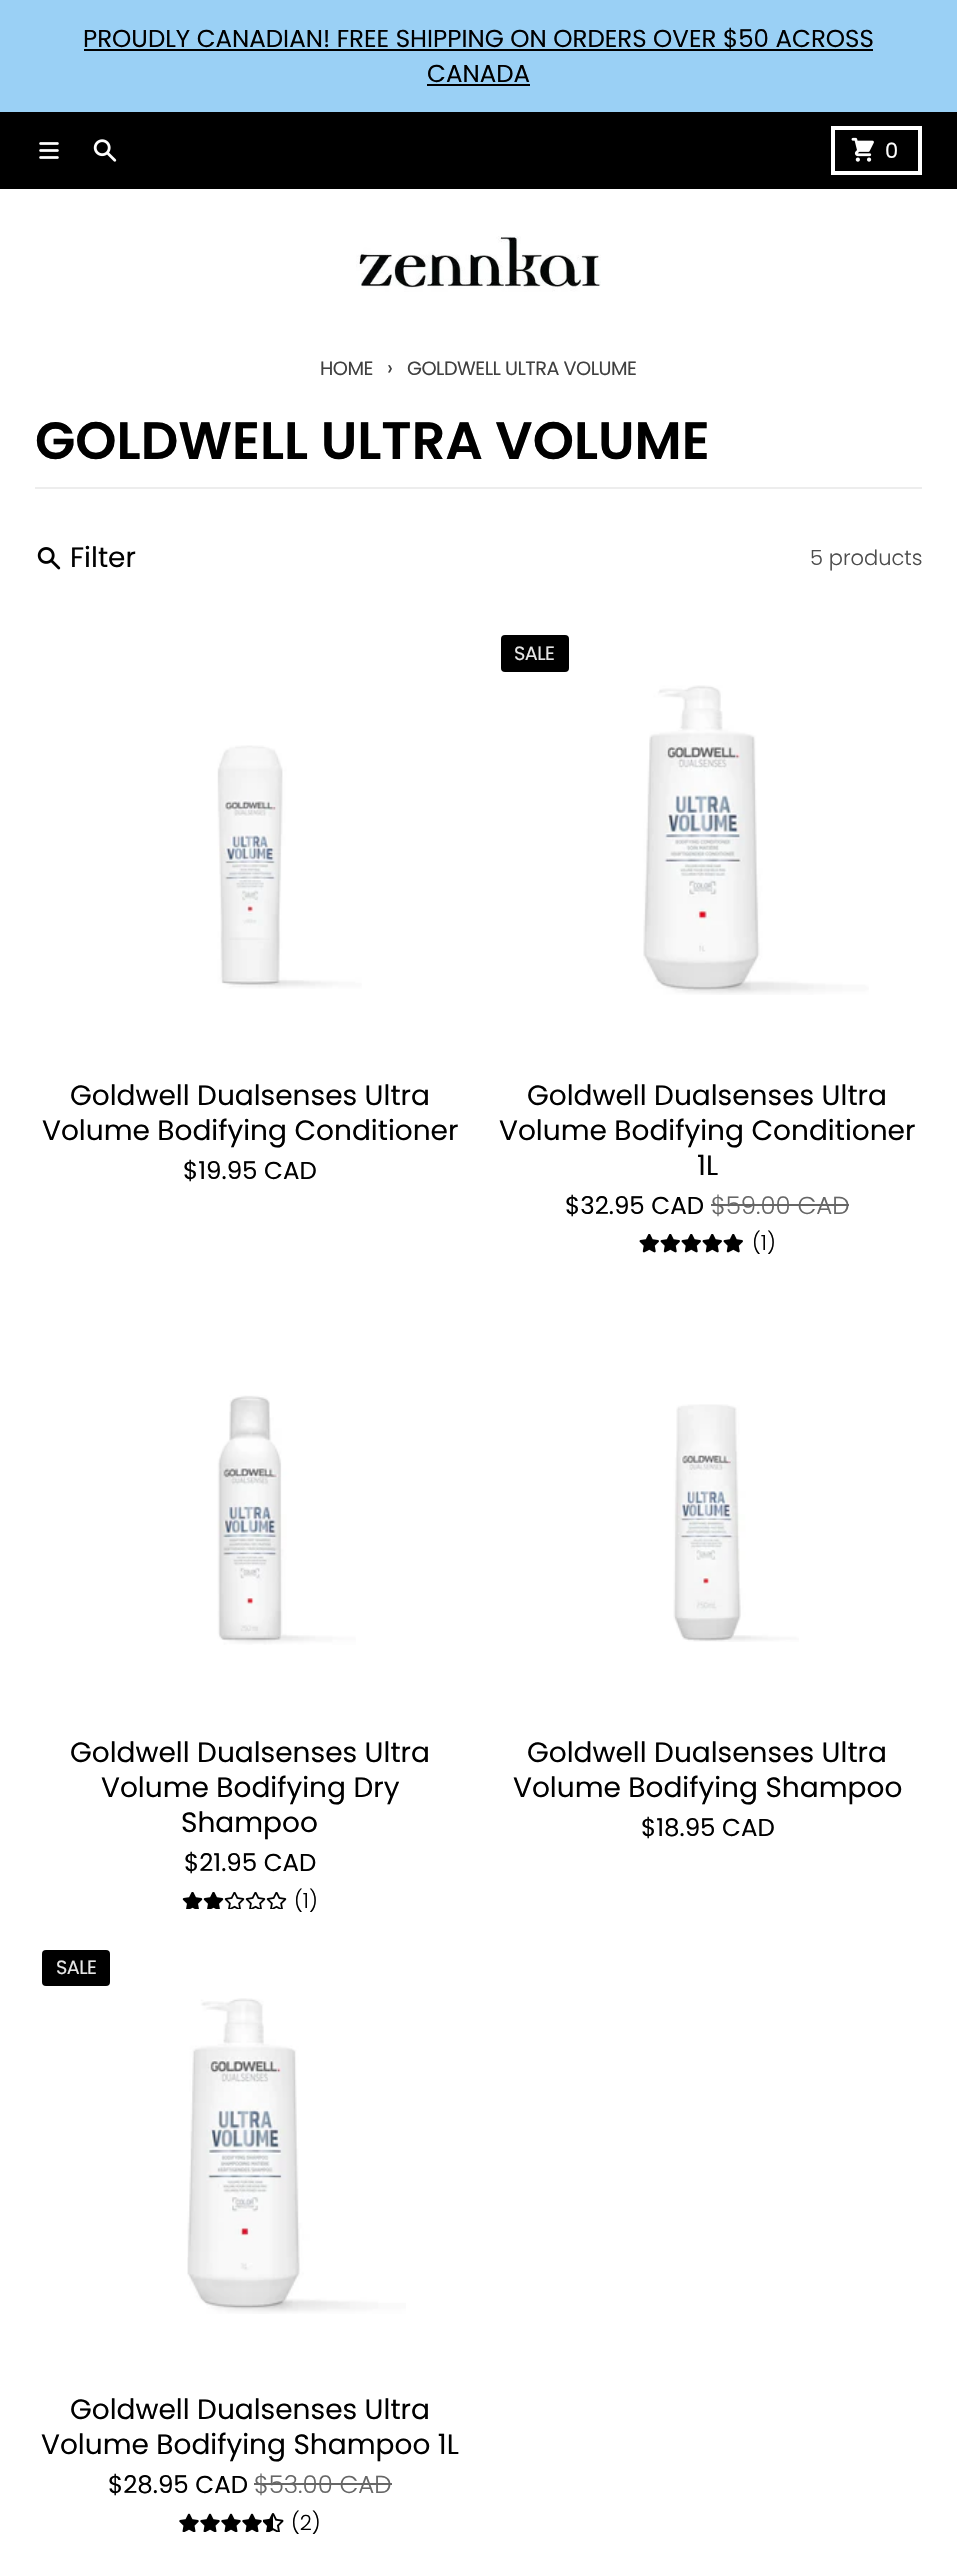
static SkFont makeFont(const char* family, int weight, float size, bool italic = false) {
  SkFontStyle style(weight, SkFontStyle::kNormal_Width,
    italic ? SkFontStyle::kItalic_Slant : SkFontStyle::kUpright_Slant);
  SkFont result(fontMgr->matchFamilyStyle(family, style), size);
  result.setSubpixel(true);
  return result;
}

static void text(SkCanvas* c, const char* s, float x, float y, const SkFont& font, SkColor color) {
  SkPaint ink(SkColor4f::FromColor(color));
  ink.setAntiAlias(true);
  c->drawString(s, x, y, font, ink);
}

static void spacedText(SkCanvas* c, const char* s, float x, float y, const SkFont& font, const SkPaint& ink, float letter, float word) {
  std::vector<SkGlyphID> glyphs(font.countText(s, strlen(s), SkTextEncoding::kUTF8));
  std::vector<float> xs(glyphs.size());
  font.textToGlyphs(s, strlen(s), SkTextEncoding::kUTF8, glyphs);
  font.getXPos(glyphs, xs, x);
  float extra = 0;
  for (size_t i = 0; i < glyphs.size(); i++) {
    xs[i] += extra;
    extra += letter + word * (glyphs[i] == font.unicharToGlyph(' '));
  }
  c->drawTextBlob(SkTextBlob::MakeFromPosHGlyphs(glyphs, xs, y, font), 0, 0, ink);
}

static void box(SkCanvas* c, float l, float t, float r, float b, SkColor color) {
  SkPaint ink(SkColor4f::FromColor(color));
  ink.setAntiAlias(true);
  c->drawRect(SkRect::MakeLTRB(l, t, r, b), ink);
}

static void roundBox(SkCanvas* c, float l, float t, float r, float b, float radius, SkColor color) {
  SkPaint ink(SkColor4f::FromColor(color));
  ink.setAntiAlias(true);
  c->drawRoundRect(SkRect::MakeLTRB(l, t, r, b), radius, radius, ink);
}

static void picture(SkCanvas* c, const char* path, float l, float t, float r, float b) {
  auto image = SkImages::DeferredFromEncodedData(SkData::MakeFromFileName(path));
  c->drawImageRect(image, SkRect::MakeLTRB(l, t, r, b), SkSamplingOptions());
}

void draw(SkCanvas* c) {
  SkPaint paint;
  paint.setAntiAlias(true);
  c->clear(0xff000000);
  box(c, 0, 0, 957, 112, 0xff9ad0f5);
  box(c, 84, 49, 873, 51, 0xff000000);
  SkFont face1 = makeFont("Poppins", 400, 24.5f);
  text(c, "PROUDLY CANADIAN! FREE SHIPPING ON ORDERS OVER $50 ACROSS", 83, 47, face1, 0xff000000);
  text(c, "CANADA", 427, 82, face1, 0xff000000);
  box(c, 427, 84, 530, 86, 0xff000000);
  picture(c, "img_01.png", 39, 142, 59, 159);
  picture(c, "img_02.png", 93, 139, 117, 162);
  paint.setStyle(SkPaint::kStroke_Style);
  paint.setStrokeWidth(4);
  paint.setColor(0xffffffff);
  c->drawRect(SkRect::MakeLTRB(833, 128, 920, 173), paint);
  picture(c, "img_03.png", 851, 137, 874, 162);
  SkFont face2 = makeFont("Poppins", 400, 21);
  text(c, "0", 885, 158, face2, 0xffffffff);
  box(c, 0, 189, 957, 2559, 0xffffffff);
  picture(c, "img_04.png", 356, 236, 601, 292);
  SkFont face3 = makeFont("Poppins", 400, 19.25f);
  paint.setStyle(SkPaint::kFill_Style);
  paint.setColor(0xff404040);
  spacedText(c, "HOME", 320, 375, face3, paint, -0.5f, 0);
  spacedText(c, "›", 387, 375, face2, paint, -0.5f, 0);
  spacedText(c, "GOLDWELL ULTRA VOLUME", 407, 375, face3, paint, -0.5f, 0);
  box(c, 35, 487, 922, 489, 0xffededed);
  SkFont face4 = makeFont("Poppins", 600, 52.5f);
  text(c, "GOLDWELL ULTRA VOLUME", 35, 459, face4, 0xff000000);
  picture(c, "img_05.png", 37, 547, 61, 570);
  SkFont face5 = makeFont("Poppins", 400, 28);
  text(c, "Filter", 70, 567, face5, 0xff000000);
  SkFont face6 = makeFont("Poppins", 300, 21);
  text(c, "5 products", 810, 565, face6, 0xff4d4d4d);
  picture(c, "img_06.png", 217, 745, 362, 989);
  text(c, "Goldwell Dualsenses Ultra", 70, 1105, face5, 0xff000000);
  text(c, "Volume Bodifying Conditioner", 42, 1140, face5, 0xff000000);
  text(c, "$19.95 CAD", 183, 1179, face1, 0xff000000);
  roundBox(c, 501, 635, 569, 672, 4, 0xff000000);
  paint.setColor(0xffe6e6e6);
  spacedText(c, "SALE", 514, 660, face3, paint, -0.5f, 0);
  picture(c, "img_07.png", 643, 685, 869, 995);
  text(c, "Goldwell Dualsenses Ultra", 527, 1105, face5, 0xff000000);
  text(c, "Volume Bodifying Conditioner", 499, 1140, face5, 0xff000000);
  text(c, "1L", 697, 1175, face5, 0xff000000);
  text(c, "$32.95 CAD", 565, 1214, face1, 0xff000000);
  SkFont face7 = makeFont("Poppins", 300, 24.5f);
  text(c, "$59.00 CAD", 711, 1214, face7, 0xff666666);
  box(c, 711, 1204, 849, 1206, 0xff666666);
  picture(c, "img_08.png", 639, 1234, 659, 1253);
  picture(c, "img_08.png", 660, 1234, 680, 1253);
  picture(c, "img_08.png", 681, 1234, 701, 1253);
  picture(c, "img_08.png", 702, 1234, 722, 1253);
  picture(c, "img_08.png", 723, 1234, 743, 1253);
  text(c, "(1)", 752, 1250, face6, 0xff000000);
  picture(c, "img_09.png", 217, 1395, 356, 1645);
  text(c, "Goldwell Dualsenses Ultra", 70, 1762, face5, 0xff000000);
  text(c, "Volume Bodifying Dry", 101, 1797, face5, 0xff000000);
  text(c, "Shampoo", 181, 1832, face5, 0xff000000);
  text(c, "$21.95 CAD", 184, 1871, face1, 0xff000000);
  picture(c, "img_10.png", 182, 1892, 203, 1909);
  picture(c, "img_10.png", 203, 1892, 224, 1909);
  picture(c, "img_11.png", 224, 1892, 245, 1909);
  picture(c, "img_11.png", 245, 1892, 266, 1909);
  picture(c, "img_11.png", 266, 1892, 287, 1909);
  text(c, "(1)", 294, 1908, face6, 0xff000000);
  picture(c, "img_12.png", 673, 1404, 799, 1642);
  text(c, "Goldwell Dualsenses Ultra", 527, 1762, face5, 0xff000000);
  text(c, "Volume Bodifying Shampoo", 513, 1797, face5, 0xff000000);
  text(c, "$18.95 CAD", 641, 1836, face1, 0xff000000);
  roundBox(c, 42, 1950, 110, 1986, 4, 0xff000000);
  spacedText(c, "SALE", 56, 1974, face3, paint, -0.5f, 0);
  picture(c, "img_13.png", 187, 1998, 406, 2314);
  text(c, "Goldwell Dualsenses Ultra", 70, 2419, face5, 0xff000000);
  text(c, "Volume Bodifying Shampoo 1L", 41, 2454, face5, 0xff000000);
  text(c, "$28.95 CAD", 108, 2493, face1, 0xff000000);
  text(c, "$53.00 CAD", 254, 2493, face7, 0xff666666);
  box(c, 254, 2483, 392, 2485, 0xff666666);
  picture(c, "img_14.png", 179, 2513, 199, 2532);
  picture(c, "img_14.png", 200, 2513, 220, 2532);
  picture(c, "img_14.png", 221, 2513, 241, 2532);
  picture(c, "img_14.png", 242, 2513, 262, 2532);
  picture(c, "img_15.png", 263, 2513, 284, 2532);
  text(c, "(2)", 291, 2530, face6, 0xff000000);
}
